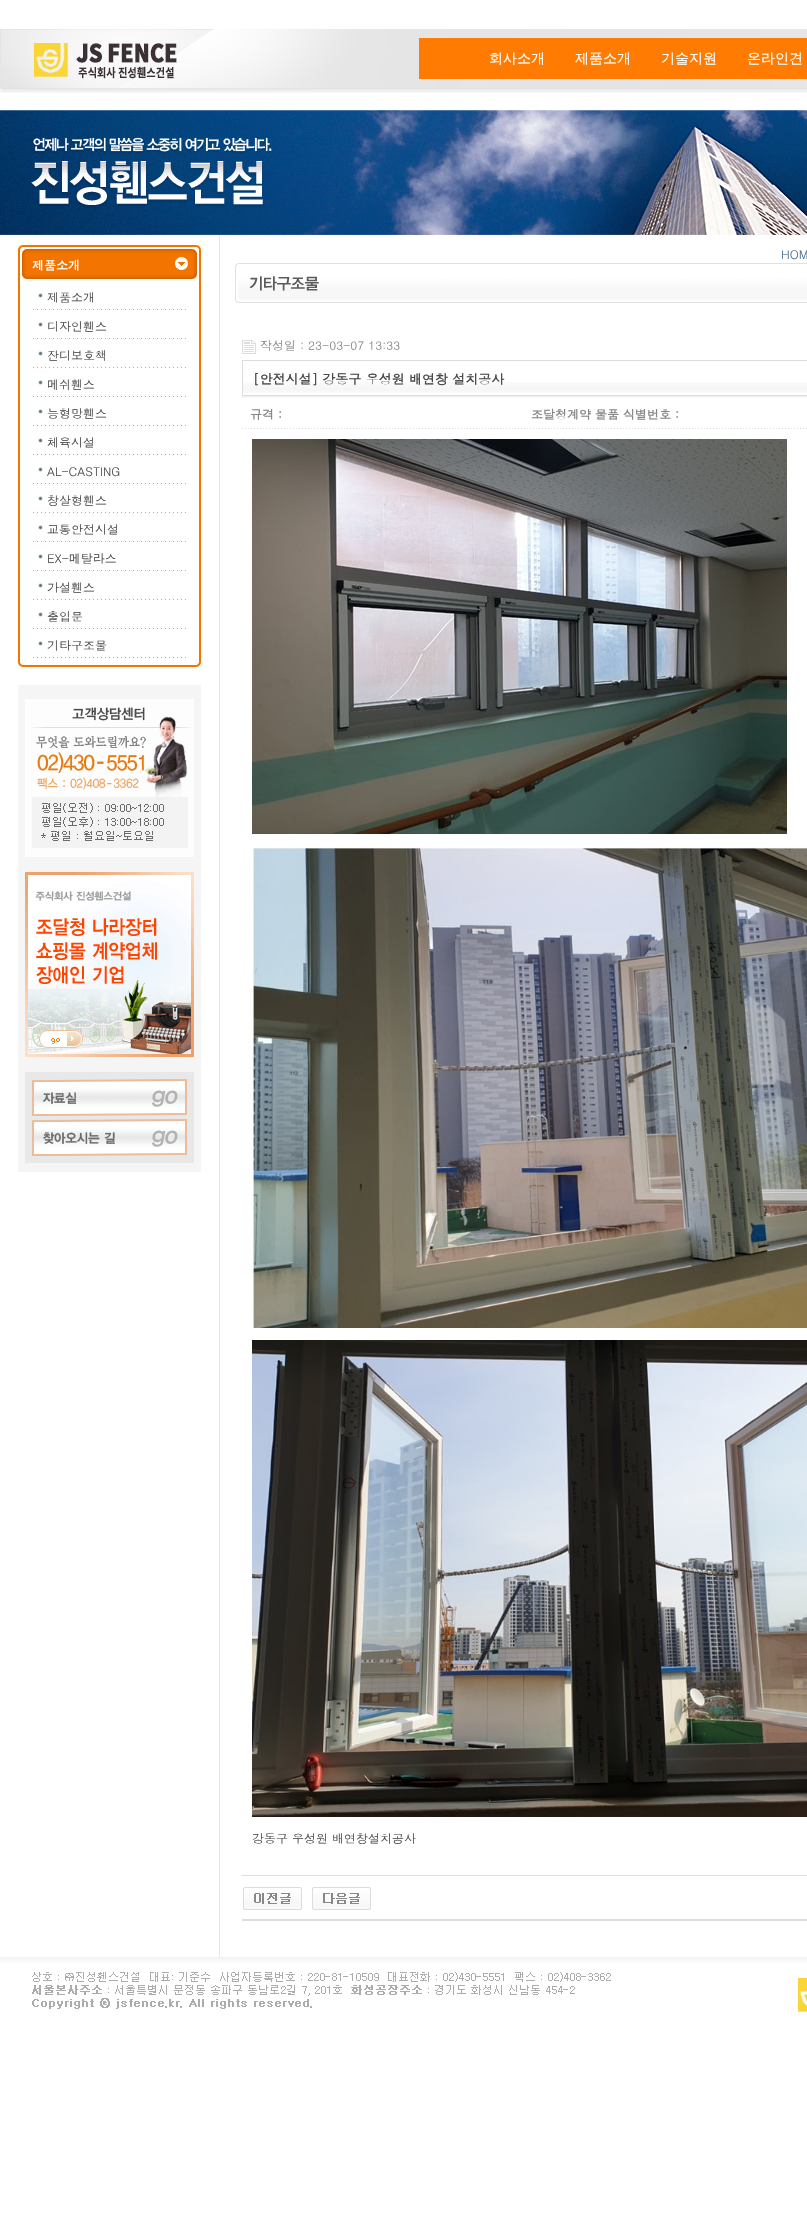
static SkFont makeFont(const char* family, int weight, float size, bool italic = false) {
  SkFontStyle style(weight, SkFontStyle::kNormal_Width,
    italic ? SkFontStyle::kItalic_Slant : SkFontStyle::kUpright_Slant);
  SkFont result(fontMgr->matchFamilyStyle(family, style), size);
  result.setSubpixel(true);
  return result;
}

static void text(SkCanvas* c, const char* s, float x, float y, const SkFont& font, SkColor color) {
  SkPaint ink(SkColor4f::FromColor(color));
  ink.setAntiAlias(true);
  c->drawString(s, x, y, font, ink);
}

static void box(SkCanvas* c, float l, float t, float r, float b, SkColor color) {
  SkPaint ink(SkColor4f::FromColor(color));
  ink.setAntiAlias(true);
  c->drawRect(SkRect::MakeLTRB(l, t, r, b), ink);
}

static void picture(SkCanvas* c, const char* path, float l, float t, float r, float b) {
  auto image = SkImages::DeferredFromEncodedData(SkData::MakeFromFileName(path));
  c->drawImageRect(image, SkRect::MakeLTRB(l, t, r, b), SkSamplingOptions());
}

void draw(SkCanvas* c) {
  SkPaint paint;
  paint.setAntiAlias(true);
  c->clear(0xffffffff);
  picture(c, "img_01.png", 0, 29, 25, 88);
  picture(c, "img_02.png", 25, 29, 192, 88);
  picture(c, "img_03.png", 192, 29, 419, 88);
  picture(c, "img_04.png", 419, 29, 807, 88);
  SkFont face1 = makeFont("WenQuanYi Zen Hei", 500, 14);
  text(c, "회사소개", 489, 63, face1, 0xffffffff);
  text(c, "제품소개", 575, 63, face1, 0xffffffff);
  text(c, "기술지원", 661, 63, face1, 0xffffffff);
  text(c, "온라인견", 747, 63, face1, 0xffffffff);
  picture(c, "img_05.png", 0, 88, 807, 93);
  picture(c, "img_06.png", 0, 110, 807, 235);
  picture(c, "img_07.png", 18, 245, 26, 281);
  picture(c, "img_08.png", 26, 245, 173, 279);
  SkFont face2 = makeFont("Dotum", 700, 12);
  text(c, "제품소개", 32, 270, face2, 0xffffffff);
  picture(c, "img_09.png", 173, 245, 201, 281);
  box(c, 18, 281, 20, 309, 0xfff47400);
  picture(c, "img_10.png", 38, 293, 43, 298);
  SkFont face3 = makeFont("Dotum", 400, 12);
  text(c, "제품소개", 47, 302, face3, 0xff4b4b4b);
  box(c, 199, 281, 201, 309, 0xfff47400);
  picture(c, "img_11.png", 33, 309, 186, 310);
  box(c, 18, 309, 20, 338, 0xfff47400);
  picture(c, "img_10.png", 38, 322, 43, 327);
  text(c, "디자인휀스", 47, 331, face3, 0xff4b4b4b);
  box(c, 199, 309, 201, 338, 0xfff47400);
  picture(c, "img_11.png", 33, 338, 186, 339);
  box(c, 18, 338, 20, 367, 0xfff47400);
  picture(c, "img_10.png", 38, 351, 43, 356);
  text(c, "잔디보호책", 47, 360, face3, 0xff4b4b4b);
  box(c, 199, 338, 201, 367, 0xfff47400);
  picture(c, "img_11.png", 33, 367, 186, 368);
  box(c, 18, 367, 20, 396, 0xfff47400);
  picture(c, "img_10.png", 38, 380, 43, 385);
  text(c, "메쉬휀스", 47, 389, face3, 0xff4b4b4b);
  box(c, 199, 367, 201, 396, 0xfff47400);
  picture(c, "img_11.png", 33, 396, 186, 397);
  box(c, 18, 396, 20, 425, 0xfff47400);
  picture(c, "img_10.png", 38, 409, 43, 414);
  text(c, "능형망휀스", 47, 418, face3, 0xff4b4b4b);
  box(c, 199, 396, 201, 425, 0xfff47400);
  picture(c, "img_11.png", 33, 425, 186, 426);
  box(c, 18, 425, 20, 454, 0xfff47400);
  picture(c, "img_10.png", 38, 438, 43, 443);
  text(c, "체육시설", 47, 447, face3, 0xff4b4b4b);
  box(c, 199, 425, 201, 454, 0xfff47400);
  picture(c, "img_11.png", 33, 454, 186, 455);
  box(c, 18, 454, 20, 483, 0xfff47400);
  picture(c, "img_10.png", 38, 467, 43, 472);
  text(c, "AL-CASTING", 47, 476, face3, 0xff4b4b4b);
  box(c, 199, 454, 201, 483, 0xfff47400);
  picture(c, "img_11.png", 33, 483, 186, 484);
  box(c, 18, 483, 20, 512, 0xfff47400);
  picture(c, "img_10.png", 38, 496, 43, 501);
  text(c, "창살형휀스", 47, 505, face3, 0xff4b4b4b);
  box(c, 199, 483, 201, 512, 0xfff47400);
  picture(c, "img_11.png", 33, 512, 186, 513);
  box(c, 18, 512, 20, 541, 0xfff47400);
  picture(c, "img_10.png", 38, 525, 43, 530);
  text(c, "교통안전시설", 47, 534, face3, 0xff4b4b4b);
  box(c, 199, 512, 201, 541, 0xfff47400);
  picture(c, "img_11.png", 33, 541, 186, 542);
  box(c, 18, 541, 20, 570, 0xfff47400);
  picture(c, "img_10.png", 38, 554, 43, 559);
  text(c, "EX-메탈라스", 47, 563, face3, 0xff4b4b4b);
  box(c, 199, 541, 201, 570, 0xfff47400);
  picture(c, "img_11.png", 33, 570, 186, 571);
  box(c, 18, 570, 20, 599, 0xfff47400);
  picture(c, "img_10.png", 38, 583, 43, 588);
  text(c, "가설휀스", 47, 592, face3, 0xff4b4b4b);
  box(c, 199, 570, 201, 599, 0xfff47400);
  picture(c, "img_11.png", 33, 599, 186, 600);
  box(c, 18, 599, 20, 628, 0xfff47400);
  picture(c, "img_10.png", 38, 612, 43, 617);
  text(c, "출입문", 47, 621, face3, 0xff4b4b4b);
  box(c, 199, 599, 201, 628, 0xfff47400);
  picture(c, "img_11.png", 33, 628, 186, 629);
  box(c, 18, 628, 20, 658, 0xfff47400);
  picture(c, "img_10.png", 38, 641, 43, 646);
  text(c, "기타구조물", 47, 650, face3, 0xff4b4b4b);
  box(c, 199, 628, 201, 658, 0xfff47400);
  picture(c, "img_11.png", 33, 657, 186, 658);
  picture(c, "img_12.png", 18, 658, 23, 667);
  box(c, 23, 665, 196, 667, 0xfff47400);
  picture(c, "img_13.png", 196, 658, 201, 667);
  picture(c, "img_14.png", 18, 685, 201, 865);
  picture(c, "img_15.png", 18, 865, 201, 1065);
  picture(c, "img_16.png", 18, 1065, 201, 1172);
  box(c, 219, 235, 220, 1957, 0xffe5e5e5);
  text(c, "HOM", 781, 259, face3, 0xff466c8a);
  picture(c, "img_17.png", 235, 263, 807, 303);
  picture(c, "img_18.png", 242, 340, 256, 354);
  text(c, "작성일 : 23-03-07 13:33", 260, 350, face3, 0xff888888);
  picture(c, "img_19.png", 243, 382, 807, 393);
  paint.setStyle(SkPaint::kStroke_Style);
  paint.setStrokeWidth(1);
  paint.setColor(0xffdddddd);
  c->drawRect(SkRect::MakeLTRB(242.5f, 360.5f, 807.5f, 395.5f), paint);
  SkFont face4 = makeFont("Dotum", 700, 13);
  text(c, "[안전시설] 강동구 우성원 배연창 설치공사", 253, 384, face4, 0xff4b4b4b);
  picture(c, "img_20.png", 242, 396, 807, 398);
  picture(c, "img_21.png", 242, 428, 807, 429);
  text(c, "규격 :", 250, 419, face2, 0xff888888);
  text(c, "조달청계약 물품 식별번호 :", 531, 419, face2, 0xff888888);
  picture(c, "img_22.png", 252, 439, 787, 834);
  picture(c, "img_23.png", 252, 846, 807, 1328);
  picture(c, "img_24.png", 252, 1340, 807, 1817);
  text(c, "강동구 우성원 배연창설치공사", 252, 1843, face3, 0xff4b4b4b);
  box(c, 242, 1875, 807, 1876, 0xffdddddd);
  picture(c, "img_25.png", 243, 1887, 302, 1910);
  picture(c, "img_26.png", 312, 1887, 371, 1910);
  box(c, 242, 1919, 807, 1921, 0xffdedede);
  picture(c, "img_27.png", 0, 1957, 807, 2012);
}
